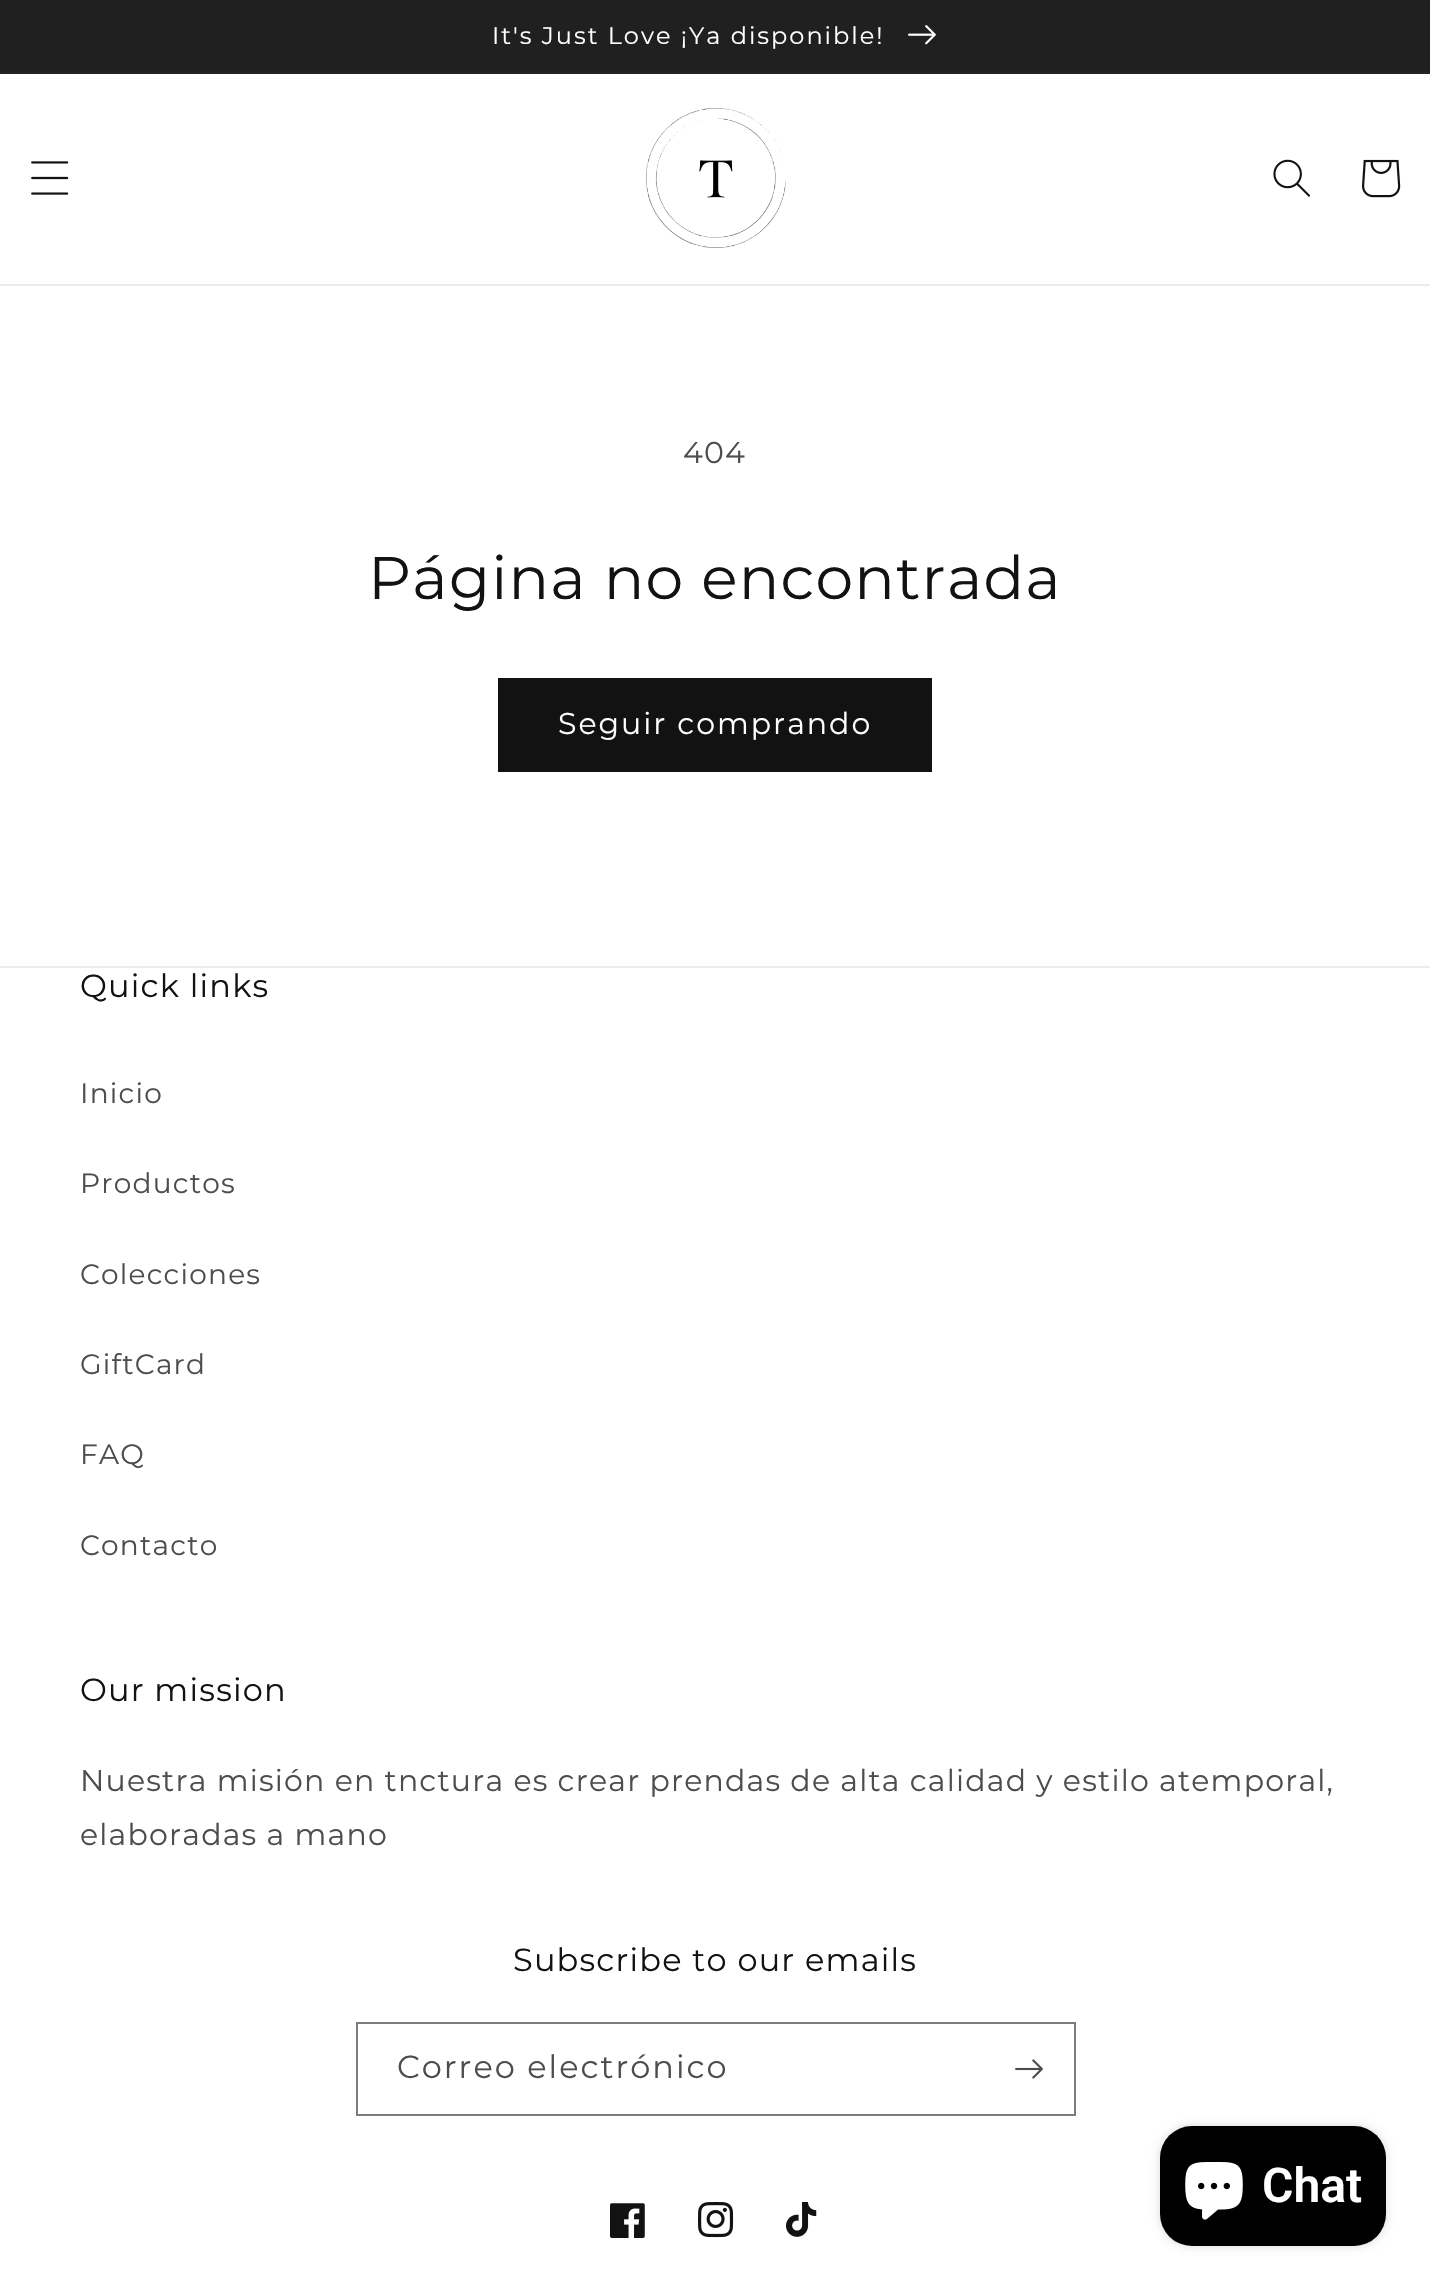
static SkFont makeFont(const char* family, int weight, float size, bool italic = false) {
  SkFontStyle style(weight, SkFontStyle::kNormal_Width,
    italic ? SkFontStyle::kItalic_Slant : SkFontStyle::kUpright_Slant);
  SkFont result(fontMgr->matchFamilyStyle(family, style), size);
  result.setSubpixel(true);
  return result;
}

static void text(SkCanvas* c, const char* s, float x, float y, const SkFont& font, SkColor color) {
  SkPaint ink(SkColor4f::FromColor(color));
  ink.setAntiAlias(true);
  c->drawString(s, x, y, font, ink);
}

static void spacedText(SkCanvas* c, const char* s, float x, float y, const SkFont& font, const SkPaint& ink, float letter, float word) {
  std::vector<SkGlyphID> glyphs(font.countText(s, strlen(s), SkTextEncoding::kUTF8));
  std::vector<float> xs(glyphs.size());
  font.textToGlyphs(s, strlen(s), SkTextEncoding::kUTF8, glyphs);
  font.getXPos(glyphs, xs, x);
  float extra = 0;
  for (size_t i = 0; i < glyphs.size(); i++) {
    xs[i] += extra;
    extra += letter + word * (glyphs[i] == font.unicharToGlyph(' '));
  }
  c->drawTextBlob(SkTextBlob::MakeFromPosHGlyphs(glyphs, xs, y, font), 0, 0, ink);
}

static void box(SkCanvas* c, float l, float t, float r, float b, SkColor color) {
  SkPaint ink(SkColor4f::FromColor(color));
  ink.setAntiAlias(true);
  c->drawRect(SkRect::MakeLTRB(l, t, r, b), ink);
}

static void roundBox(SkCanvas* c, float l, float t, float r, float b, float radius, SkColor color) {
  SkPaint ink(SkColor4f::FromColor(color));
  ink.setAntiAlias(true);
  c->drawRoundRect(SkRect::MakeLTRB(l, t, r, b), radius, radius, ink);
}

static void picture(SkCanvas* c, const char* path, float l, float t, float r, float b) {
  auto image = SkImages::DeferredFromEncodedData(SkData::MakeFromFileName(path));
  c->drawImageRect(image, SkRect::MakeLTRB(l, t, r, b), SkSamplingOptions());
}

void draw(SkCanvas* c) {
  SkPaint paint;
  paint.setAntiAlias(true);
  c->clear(0xffffffff);
  box(c, 0, 72, 1430, 74, 0xff252525);
  box(c, 0, 0, 1430, 72, 0xff202020);
  SkFont face1 = makeFont("Montserrat", 400, 24);
  paint.setColor(0xffffffff);
  spacedText(c, "It's Just Love ¡Ya disponible!", 492, 44, face1, paint, 2, 0);
  picture(c, "img_01.png", 908, 25, 936, 45);
  box(c, 0, 284, 1430, 286, 0xffececec);
  picture(c, "img_02.png", 31, 161, 69, 195);
  picture(c, "img_03.png", 646, 108, 786, 248);
  picture(c, "img_04.png", 1273, 159, 1310, 197);
  picture(c, "img_05.png", 1362, 159, 1401, 198);
  SkFont face2 = makeFont("Montserrat", 400, 30);
  paint.setColor(0xff4d4d4d);
  spacedText(c, "404", 683, 463, face2, paint, 1.2f, 0);
  SkFont face3 = makeFont("Montserrat", 400, 60);
  paint.setColor(0xff121212);
  spacedText(c, "Página no encontrada", 368, 599, face3, paint, 1.2f, 0);
  box(c, 498, 678, 932, 772, 0xff121212);
  paint.setColor(0xffffffff);
  spacedText(c, "Seguir comprando", 558, 734, face2, paint, 2, 0);
  box(c, 0, 966, 1430, 968, 0xffececec);
  SkFont face4 = makeFont("Montserrat", 400, 32);
  paint.setColor(0xff121212);
  spacedText(c, "Quick links", 80, 997, face4, paint, 1.2f, 0);
  SkFont face5 = makeFont("Montserrat", 400, 28);
  paint.setColor(0xff4d4d4d);
  spacedText(c, "Inicio", 80, 1103, face5, paint, 1.2f, 0);
  spacedText(c, "Productos", 80, 1193, face5, paint, 1.2f, 0);
  spacedText(c, "Colecciones", 80, 1284, face5, paint, 1.2f, 0);
  spacedText(c, "GiftCard", 80, 1374, face5, paint, 1.2f, 0);
  spacedText(c, "FAQ", 80, 1464, face5, paint, 1.2f, 0);
  spacedText(c, "Contacto", 80, 1555, face5, paint, 1.2f, 0);
  paint.setColor(0xff121212);
  spacedText(c, "Our mission", 80, 1701, face4, paint, 1.2f, 0);
  paint.setColor(0xff4d4d4d);
  spacedText(c, "Nuestra misión en tnctura es crear prendas de alta calidad y estilo atemporal,", 80, 1791, face2, paint, 1.2f, 0);
  spacedText(c, "elaboradas a mano", 80, 1845, face2, paint, 1.2f, 0);
  paint.setColor(0xff121212);
  spacedText(c, "Subscribe to our emails", 513, 1971, face4, paint, 1.2f, 0);
  paint.setStyle(SkPaint::kStroke_Style);
  paint.setStrokeWidth(2);
  paint.setColor(0xff7d7d7d);
  c->drawRect(SkRect::MakeLTRB(357, 2023, 1075, 2115), paint);
  paint.setStyle(SkPaint::kFill_Style);
  paint.setColor(0xff4d4d4d);
  spacedText(c, "Correo electrónico", 397, 2078, face4, paint, 2, 0);
  picture(c, "img_06.png", 1015, 2059, 1043, 2079);
  picture(c, "img_07.png", 610, 2203, 645, 2238);
  picture(c, "img_08.png", 698, 2202, 734, 2238);
  picture(c, "img_09.png", 786, 2202, 817, 2237);
  paint.setColor(0x26000000);
  paint.setMaskFilter(SkMaskFilter::MakeBlur(kNormal_SkBlurStyle, 5));
  c->drawRoundRect(SkRect::MakeLTRB(1160, 2126, 1386, 2246), 32, 32, paint);
  paint.setMaskFilter(nullptr);
  roundBox(c, 1160, 2126, 1386, 2246, 32, 0xff000000);
  picture(c, "img_10.png", 1185, 2162, 1243, 2220);
  SkFont face6 = makeFont("Roboto", 600, 48);
  text(c, "Chat", 1262, 2202, face6, 0xffffffff);
}
